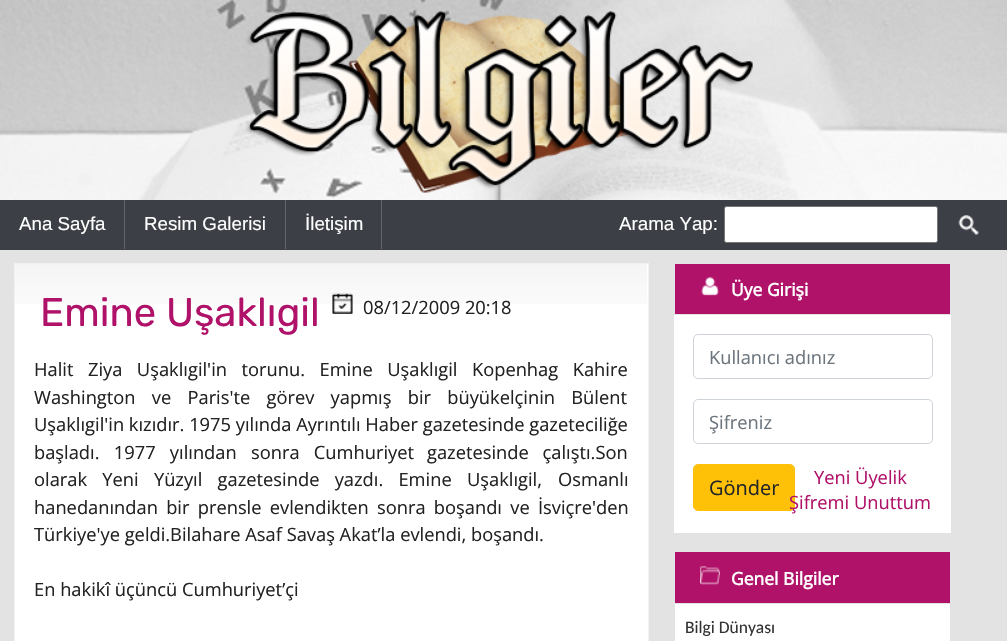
static SkFont makeFont(const char* family, int weight, float size, bool italic = false) {
  SkFontStyle style(weight, SkFontStyle::kNormal_Width,
    italic ? SkFontStyle::kItalic_Slant : SkFontStyle::kUpright_Slant);
  SkFont result(fontMgr->matchFamilyStyle(family, style), size);
  result.setSubpixel(true);
  return result;
}

static void text(SkCanvas* c, const char* s, float x, float y, const SkFont& font, SkColor color) {
  SkPaint ink(SkColor4f::FromColor(color));
  ink.setAntiAlias(true);
  c->drawString(s, x, y, font, ink);
}

static void spacedText(SkCanvas* c, const char* s, float x, float y, const SkFont& font, const SkPaint& ink, float letter, float word) {
  std::vector<SkGlyphID> glyphs(font.countText(s, strlen(s), SkTextEncoding::kUTF8));
  std::vector<float> xs(glyphs.size());
  font.textToGlyphs(s, strlen(s), SkTextEncoding::kUTF8, glyphs);
  font.getXPos(glyphs, xs, x);
  float extra = 0;
  for (size_t i = 0; i < glyphs.size(); i++) {
    xs[i] += extra;
    extra += letter + word * (glyphs[i] == font.unicharToGlyph(' '));
  }
  c->drawTextBlob(SkTextBlob::MakeFromPosHGlyphs(glyphs, xs, y, font), 0, 0, ink);
}

static void box(SkCanvas* c, float l, float t, float r, float b, SkColor color) {
  SkPaint ink(SkColor4f::FromColor(color));
  ink.setAntiAlias(true);
  c->drawRect(SkRect::MakeLTRB(l, t, r, b), ink);
}

static void picture(SkCanvas* c, const char* path, float l, float t, float r, float b) {
  auto image = SkImages::DeferredFromEncodedData(SkData::MakeFromFileName(path));
  c->drawImageRect(image, SkRect::MakeLTRB(l, t, r, b), SkSamplingOptions());
}

void draw(SkCanvas* c) {
  SkPaint paint;
  paint.setAntiAlias(true);
  c->clear(0xff3c3f45);
  picture(c, "img_01.png", 0, 0, 1007, 200);
  picture(c, "img_02.png", 245, 11, 753, 193);
  box(c, 124, 200, 125, 249, 0xff63656a);
  SkFont face1 = makeFont("Liberation Sans", 400, 18.75f);
  text(c, "Ana Sayfa", 19, 230, face1, 0xffffffff);
  box(c, 285, 200, 286, 249, 0xff63656a);
  text(c, "Resim Galerisi", 144, 230, face1, 0xffffffff);
  box(c, 381, 200, 382, 249, 0xff63656a);
  text(c, "İletişim", 305, 230, face1, 0xffffffff);
  text(c, "Arama Yap:", 619, 230, face1, 0xffffffff);
  paint.setColor(0xffffffff);
  c->drawRoundRect(SkRect::MakeLTRB(724.5f, 206.5f, 937.5f, 242.5f), 2, 2, paint);
  paint.setStyle(SkPaint::kStroke_Style);
  paint.setStrokeWidth(1);
  paint.setColor(0xff767676);
  c->drawRoundRect(SkRect::MakeLTRB(724.5f, 206.5f, 937.5f, 242.5f), 2, 2, paint);
  picture(c, "img_03.png", 958, 215, 979, 235);
  box(c, 0, 250, 1007, 641, 0xffe3e3e3);
  paint.setStyle(SkPaint::kFill_Style);
  paint.setColor(0xffffffff);
  c->drawRect(SkRect::MakeLTRB(14.5f, 263.5f, 648.5f, 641.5f), paint);
  paint.setStyle(SkPaint::kStroke_Style);
  paint.setColor(0xfff2f2f2);
  c->drawRect(SkRect::MakeLTRB(14.5f, 263.5f, 648.5f, 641.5f), paint);
  picture(c, "img_04.png", 15, 264, 647, 304);
  SkFont face2 = makeFont("Rubik", 300, 40);
  text(c, "Emine Uşaklıgil", 40, 326, face2, 0xffb01169);
  picture(c, "img_05.png", 332, 293, 353, 314);
  SkFont face3 = makeFont("Open Sans", 400, 18.3f);
  text(c, "08/12/2009 20:18", 363, 314, face3, 0xff222222);
  paint.setStyle(SkPaint::kFill_Style);
  paint.setColor(0xff222222);
  spacedText(c, "Halit Ziya Uşaklıgil'in torunu. Emine Uşaklıgil Kopenhag Kahire", 34, 376, face3, paint, 0, 9.75f);
  spacedText(c, "Washington ve Paris'te görev yapmış bir büyükelçinin Bülent", 34, 404, face3, paint, 0, 11.5f);
  text(c, "Uşaklıgil'in kızıdır. 1975 yılında Ayrıntılı Haber gazetesinde gazeteciliğe", 34, 431, face3, 0xff222222);
  spacedText(c, "başladı. 1977 yılından sonra Cumhuriyet", 34, 459, face3, paint, 0, 9.5f);
  spacedText(c, "gazetesinde çalıştı.Son", 427, 459, face3, paint, 0, 9);
  spacedText(c, "olarak Yeni Yüzyıl gazetesinde yazdı. Emine Uşaklıgil,", 34, 486, face3, paint, 0, 10.5f);
  text(c, "Osmanlı", 558, 486, face3, 0xff222222);
  spacedText(c, "hanedanından bir prensle evlendikten sonra boşandı ve İsviçre'den", 34, 514, face3, paint, 0, 3.5f);
  text(c, "Türkiye'ye geldi.Bilahare Asaf Savaş Akat’la evlendi, boşandı.", 34, 541, face3, 0xff222222);
  text(c, "En hakikî üçüncü Cumhuriyet’çi", 34, 596, face3, 0xff222222);
  box(c, 674, 315, 951, 533, 0xffffffff);
  box(c, 675, 264, 950, 314, 0xffb01169);
  picture(c, "img_06.png", 701, 277, 719, 296);
  SkFont face4 = makeFont("Open Sans", 700, 17.5f);
  text(c, "Üye Girişi", 731, 296, face4, 0xffffffff);
  paint.setStyle(SkPaint::kStroke_Style);
  paint.setColor(0xffced4da);
  c->drawRoundRect(SkRect::MakeLTRB(693.5f, 334.5f, 932.5f, 378.5f), 4.5f, 4.5f, paint);
  text(c, "Kullanıcı adınız", 709, 364, face3, 0xff6c757d);
  c->drawRoundRect(SkRect::MakeLTRB(693.5f, 399.5f, 932.5f, 443.5f), 4.5f, 4.5f, paint);
  text(c, "Şifreniz", 709, 429, face3, 0xff6c757d);
  paint.setStyle(SkPaint::kFill_Style);
  paint.setColor(0xffffc107);
  c->drawRoundRect(SkRect::MakeLTRB(693.5f, 464.5f, 794.5f, 510.5f), 4.5f, 4.5f, paint);
  paint.setStyle(SkPaint::kStroke_Style);
  c->drawRoundRect(SkRect::MakeLTRB(693.5f, 464.5f, 794.5f, 510.5f), 4.5f, 4.5f, paint);
  SkFont face5 = makeFont("Open Sans", 400, 20);
  text(c, "Gönder", 709, 495, face5, 0xff212529);
  text(c, "Yeni Üyelik", 814, 484, face3, 0xffb01169);
  text(c, "Şifremi Unuttum", 789, 509, face3, 0xffb01169);
  box(c, 675, 604, 950, 641, 0xffffffff);
  box(c, 675, 552, 950, 603, 0xffb01169);
  picture(c, "img_07.png", 700, 566, 720, 585);
  text(c, "Genel Bilgiler", 731, 585, face4, 0xffffffff);
  SkFont face6 = makeFont("Carlito", 400, 17.5f);
  text(c, "Bilgi Dünyası", 685, 633, face6, 0xff333333);
}
